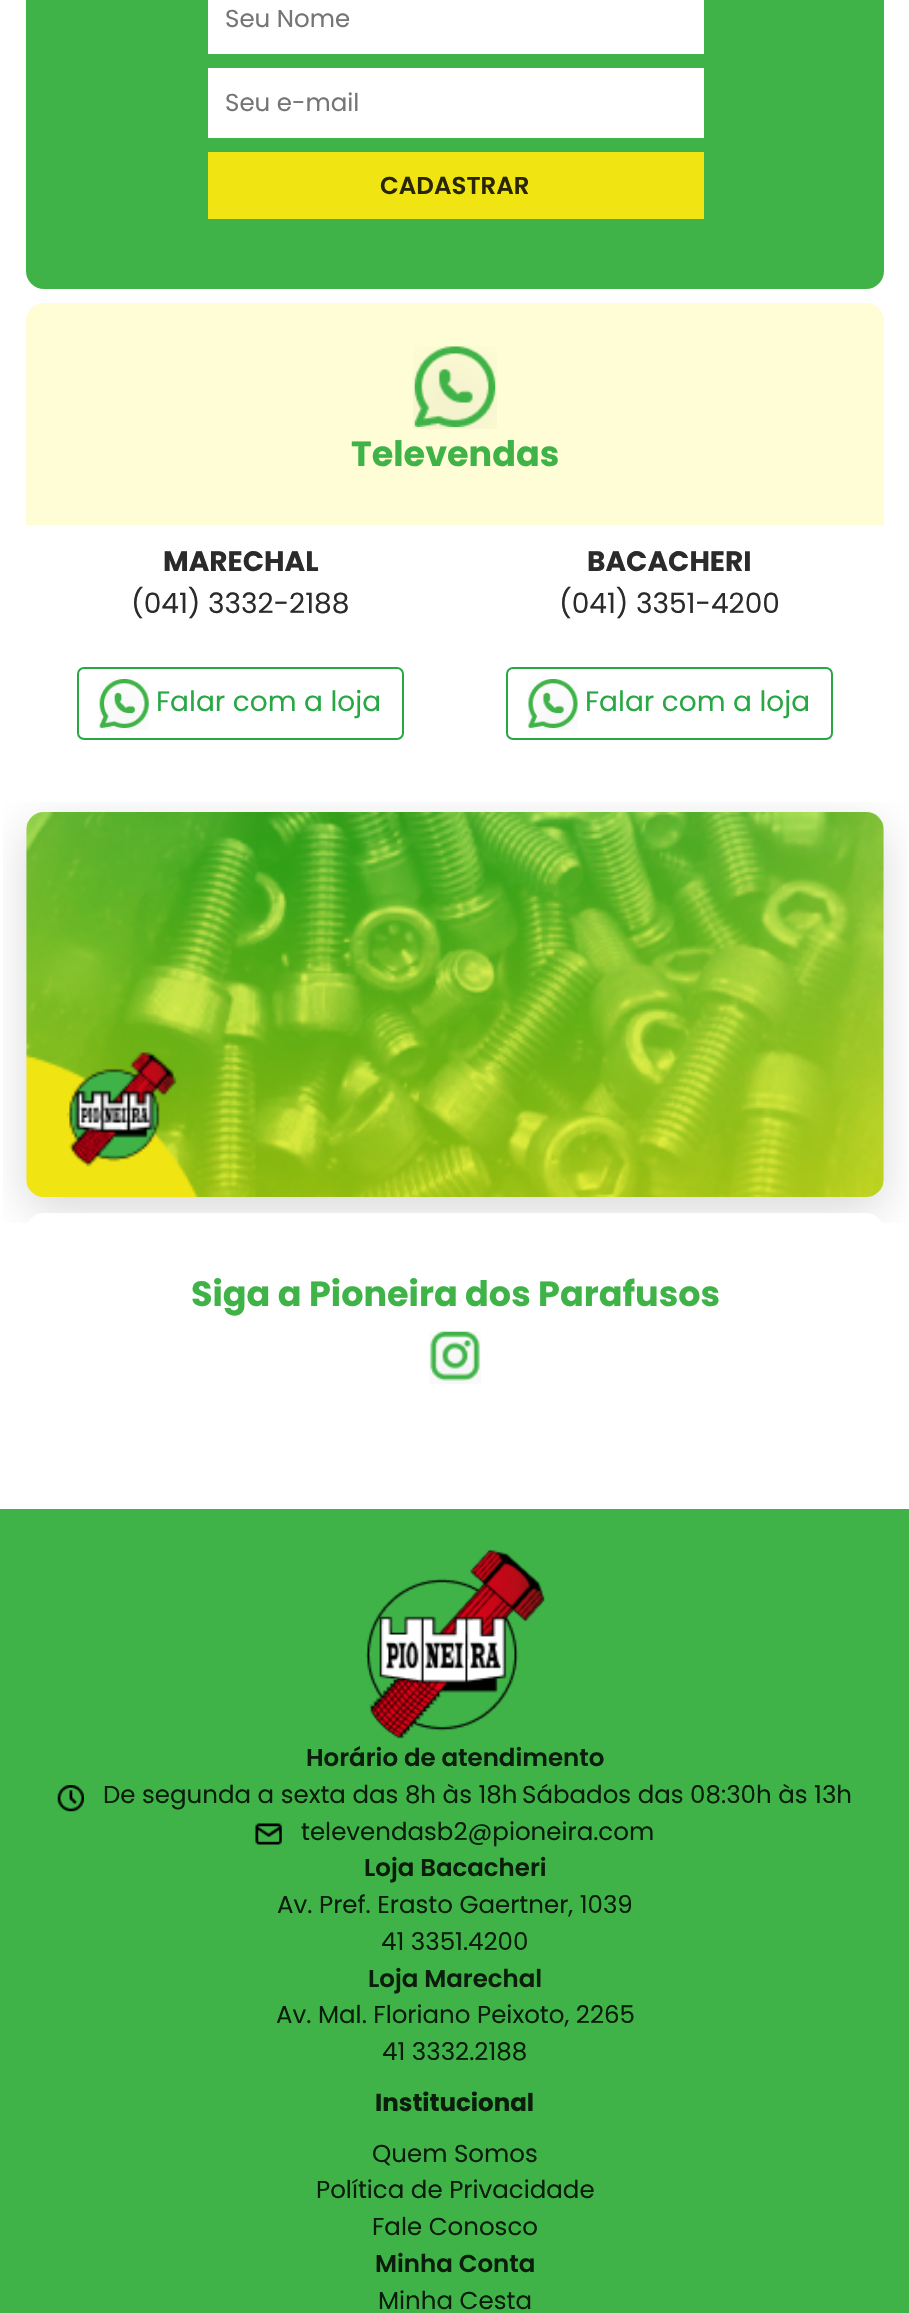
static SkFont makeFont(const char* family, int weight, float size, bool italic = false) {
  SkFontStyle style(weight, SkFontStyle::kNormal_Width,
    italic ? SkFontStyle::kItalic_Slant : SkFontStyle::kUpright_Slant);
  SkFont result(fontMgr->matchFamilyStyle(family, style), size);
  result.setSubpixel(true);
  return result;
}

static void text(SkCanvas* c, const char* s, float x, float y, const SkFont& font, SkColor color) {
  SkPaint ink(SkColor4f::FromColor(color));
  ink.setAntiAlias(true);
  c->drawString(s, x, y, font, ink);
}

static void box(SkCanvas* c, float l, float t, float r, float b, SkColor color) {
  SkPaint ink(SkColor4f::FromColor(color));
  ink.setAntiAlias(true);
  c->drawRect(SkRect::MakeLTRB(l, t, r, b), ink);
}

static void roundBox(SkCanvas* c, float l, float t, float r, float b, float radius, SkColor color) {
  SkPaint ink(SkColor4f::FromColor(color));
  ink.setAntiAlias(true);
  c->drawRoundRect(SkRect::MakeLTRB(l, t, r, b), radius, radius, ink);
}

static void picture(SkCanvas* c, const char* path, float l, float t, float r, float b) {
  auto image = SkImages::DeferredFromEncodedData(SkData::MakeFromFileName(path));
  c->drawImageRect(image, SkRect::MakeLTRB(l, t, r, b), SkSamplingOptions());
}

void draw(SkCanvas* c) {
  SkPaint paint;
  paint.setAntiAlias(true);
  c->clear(0xffffffff);
  roundBox(c, 26, -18, 884, 289, 18, 0xff3fb348);
  box(c, 208, 0, 704, 54, 0xffffffff);
  SkFont face1 = makeFont("Poppins", 400, 24.5f);
  text(c, "Seu Nome", 225, 27, face1, 0xff757575);
  box(c, 208, 68, 704, 138, 0xffffffff);
  text(c, "Seu e-mail", 225, 111, face1, 0xff757575);
  box(c, 208, 152, 704, 219, 0xfff0e412);
  SkFont face2 = makeFont("Poppins", 600, 24.5f);
  text(c, "CADASTRAR", 380, 194, face2, 0xff292703);
  paint.setColor(0xfffffdd6);
  c->drawPath(SkPathBuilder().moveTo(44, 303).lineTo(866, 303).cubicTo(876, 303, 884, 311, 884, 321).lineTo(884, 525).lineTo(26, 525).lineTo(26, 321).cubicTo(26, 311, 34, 303, 44, 303).close().detach(), paint);
  picture(c, "img_01.png", 413, 346, 497, 429);
  SkFont face3 = makeFont("Poppins", 700, 35);
  text(c, "Televendas", 351, 466, face3, 0xff3fb348);
  SkFont face4 = makeFont("Poppins", 700, 28);
  text(c, "MARECHAL", 163, 571, face4, 0xff2b2b2b);
  SkFont face5 = makeFont("Poppins", 400, 28);
  text(c, "(041) 3332-2188", 131, 613, face5, 0xff2b2b2b);
  paint.setStyle(SkPaint::kStroke_Style);
  paint.setStrokeWidth(2);
  paint.setColor(0xff28a745);
  c->drawRoundRect(SkRect::MakeLTRB(78, 668, 403, 739), 6, 6, paint);
  picture(c, "img_02.png", 99, 679, 149, 730);
  text(c, "Falar com a loja", 156, 711, face5, 0xff28a745);
  text(c, "BACACHERI", 587, 571, face4, 0xff2b2b2b);
  text(c, "(041) 3351-4200", 559, 613, face5, 0xff2b2b2b);
  c->drawRoundRect(SkRect::MakeLTRB(507, 668, 832, 739), 6, 6, paint);
  picture(c, "img_03.png", 528, 679, 578, 730);
  text(c, "Falar com a loja", 585, 711, face5, 0xff28a745);
  picture(c, "img_04.png", 3, 802, 907, 1223);
  roundBox(c, 26, 1213, 884, 1493, 18, 0xffffffff);
  text(c, "Siga a Pioneira dos Parafusos", 191, 1306, face3, 0xff3fb348);
  picture(c, "img_05.png", 429, 1331, 481, 1384);
  box(c, 0, 1509, 909, 2313, 0xff3fb348);
  picture(c, "img_06.png", 365, 1550, 545, 1739);
  text(c, "Horário de atendimento", 306, 1766, face2, 0xff0b1e0c);
  picture(c, "img_07.png", 57, 1785, 84, 1812);
  text(c, "De segunda a sexta das 8h às 18h", 103, 1803, face1, 0xff0b1e0c);
  text(c, "Sábados das 08:30h às 13h", 522, 1803, face1, 0xff0b1e0c);
  picture(c, "img_08.png", 255, 1823, 282, 1845);
  text(c, "televendasb2@pioneira.com", 301, 1840, face1, 0xff0b1e0c);
  text(c, "Loja Bacacheri", 364, 1876, face2, 0xff0b1e0c);
  text(c, "Av. Pref. Erasto Gaertner, 1039", 277, 1913, face1, 0xff0b1e0c);
  text(c, "41 3351.4200", 381, 1950, face1, 0xff0b1e0c);
  text(c, "Loja Marechal", 368, 1987, face2, 0xff0b1e0c);
  text(c, "Av. Mal. Floriano Peixoto, 2265", 276, 2023, face1, 0xff0b1e0c);
  text(c, "41 3332.2188", 382, 2060, face1, 0xff0b1e0c);
  SkFont face6 = makeFont("Poppins", 700, 24.5f);
  text(c, "Institucional", 375, 2111, face6, 0xff0b1e0c);
  text(c, "Quem Somos", 372, 2162, face1, 0xff0b1e0c);
  text(c, "Política de Privacidade", 316, 2198, face1, 0xff0b1e0c);
  text(c, "Fale Conosco", 372, 2235, face1, 0xff0b1e0c);
  text(c, "Minha Conta", 375, 2272, face2, 0xff0b1e0c);
  text(c, "Minha Cesta", 378, 2309, face1, 0xff0b1e0c);
}
